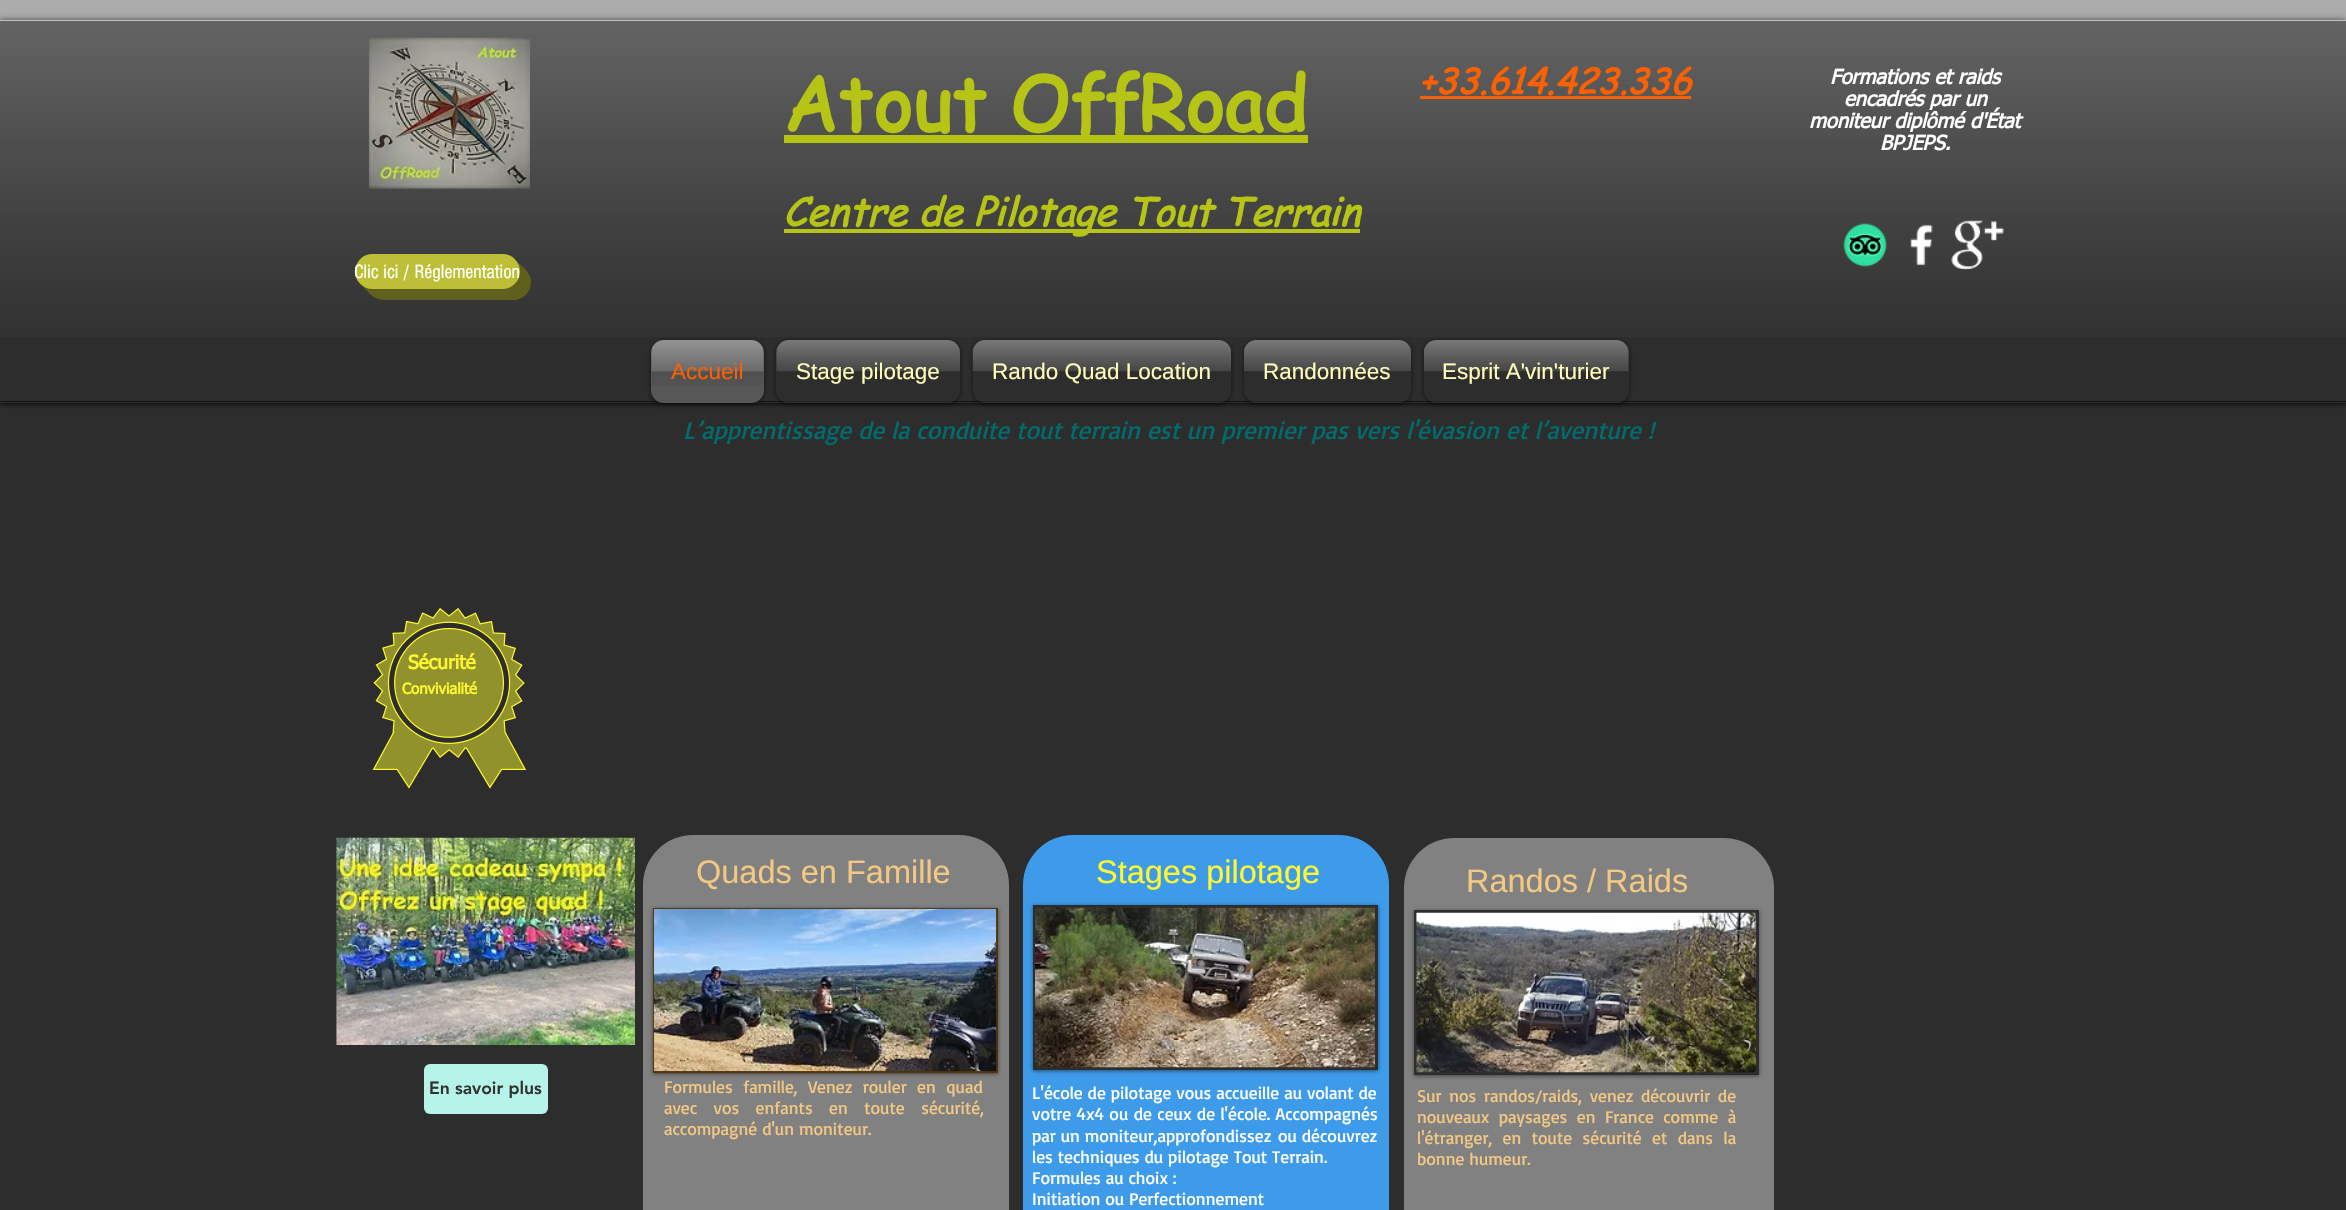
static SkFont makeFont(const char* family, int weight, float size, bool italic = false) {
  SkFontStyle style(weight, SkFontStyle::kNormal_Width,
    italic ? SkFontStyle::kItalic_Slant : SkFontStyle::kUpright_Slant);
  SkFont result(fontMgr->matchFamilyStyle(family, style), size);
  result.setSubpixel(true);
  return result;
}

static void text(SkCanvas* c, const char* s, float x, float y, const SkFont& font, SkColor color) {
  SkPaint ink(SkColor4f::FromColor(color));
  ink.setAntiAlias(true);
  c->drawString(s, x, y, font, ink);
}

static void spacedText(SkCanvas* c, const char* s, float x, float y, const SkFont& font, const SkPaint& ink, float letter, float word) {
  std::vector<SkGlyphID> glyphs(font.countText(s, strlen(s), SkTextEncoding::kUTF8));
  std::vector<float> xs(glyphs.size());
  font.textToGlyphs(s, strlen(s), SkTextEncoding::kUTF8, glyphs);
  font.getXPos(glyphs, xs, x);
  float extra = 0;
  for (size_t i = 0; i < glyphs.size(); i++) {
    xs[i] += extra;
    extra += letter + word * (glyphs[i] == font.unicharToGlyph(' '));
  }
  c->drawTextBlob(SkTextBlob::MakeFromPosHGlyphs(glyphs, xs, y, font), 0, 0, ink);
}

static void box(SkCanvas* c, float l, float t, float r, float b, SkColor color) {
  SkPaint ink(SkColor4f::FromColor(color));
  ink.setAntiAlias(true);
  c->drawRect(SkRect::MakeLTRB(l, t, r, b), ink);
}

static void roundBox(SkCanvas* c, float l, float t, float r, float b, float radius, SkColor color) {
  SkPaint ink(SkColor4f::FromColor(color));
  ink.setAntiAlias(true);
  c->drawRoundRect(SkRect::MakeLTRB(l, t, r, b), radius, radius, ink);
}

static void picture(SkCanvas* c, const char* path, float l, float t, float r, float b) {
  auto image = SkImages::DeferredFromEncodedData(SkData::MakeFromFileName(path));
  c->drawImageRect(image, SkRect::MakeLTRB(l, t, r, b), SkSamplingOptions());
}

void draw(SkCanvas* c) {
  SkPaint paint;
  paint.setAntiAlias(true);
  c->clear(0xff2d2d2d);
  c->save();
  c->clipRect(SkRect::MakeLTRB(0, 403, 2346, 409));
  paint.setColor(0xb3000000);
  paint.setMaskFilter(SkMaskFilter::MakeBlur(kNormal_SkBlurStyle, 3));
  c->drawRect(SkRect::MakeLTRB(0, 0, 2346, 403), paint);
  paint.setMaskFilter(nullptr);
  c->restore();
  box(c, 0, 0, 2346, 20, 0x99ffffff);
  paint.setColor(0x99000000);
  paint.setMaskFilter(SkMaskFilter::MakeBlur(kNormal_SkBlurStyle, 3));
  c->drawRect(SkRect::MakeLTRB(0, 20, 2346, 403), paint);
  paint.setMaskFilter(nullptr);
  box(c, 0, 21, 2346, 403, 0xff2d2d2d);
  picture(c, "img_01.png", 0, 21, 2346, 337);
  box(c, 0, 401, 2346, 402, 0xff121212);
  box(c, 0, 20, 2346, 21, 0xffc1c1c1);
  picture(c, "img_02.png", 368, 37, 530, 189);
  box(c, 784, 135, 1308, 143, 0xffb6c416);
  SkFont face1 = makeFont("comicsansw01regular", 700, 75);
  text(c, "Atout OffRoad", 783, 131, face1, 0xffb6c416);
  box(c, 784, 229, 1194, 233, 0xffb6c416);
  SkFont face2 = makeFont("comicsansw01regular", 700, 38.75f, true);
  text(c, "Centre de Pilotage Tout Terrain", 783, 226, face2, 0xffb6c416);
  box(c, 1194, 229, 1360, 233, 0xffb6c416);
  SkFont face3 = makeFont("comicsansw01regular", 700, 35, true);
  text(c, "+33.614.423.336", 1419, 94, face3, 0xfffc6000);
  box(c, 1420, 96, 1691, 99, 0xfffc6000);
  SkFont face4 = makeFont("tahoma", 700, 20, true);
  text(c, "Formations et raids", 1830, 84, face4, 0xffffffff);
  text(c, "encadrés par un", 1844, 106, face4, 0xffffffff);
  text(c, "moniteur diplômé d'État", 1809, 128, face4, 0xffffffff);
  text(c, "BPJEPS.", 1880, 150, face4, 0xffffffff);
  picture(c, "img_03.png", 1843, 223, 1887, 267);
  picture(c, "img_04.png", 1910, 224, 1933, 266);
  picture(c, "img_05.png", 1951, 220, 2004, 270);
  paint.setColor(0xff5f601c);
  c->drawPath(SkPathBuilder().moveTo(367, 288).cubicTo(369, 295, 376, 300, 384, 300).lineTo(514, 300).cubicTo(523, 300, 531, 292, 531, 282).cubicTo(531, 275, 526, 268, 519, 266).lineTo(520, 271).cubicTo(520, 281, 512, 289, 502, 289).lineTo(372, 289).close().detach(), paint);
  c->drawPath(SkPathBuilder().moveTo(365, 287).cubicTo(368, 294, 374, 298, 382, 298).lineTo(512, 298).cubicTo(521, 298, 529, 290, 529, 280).cubicTo(529, 273, 525, 267, 519, 265).cubicTo(520, 267, 520, 269, 520, 271).cubicTo(520, 281, 512, 289, 502, 289).lineTo(372, 289).cubicTo(370, 289, 368, 288, 365, 287).close().detach(), paint);
  c->drawPath(SkPathBuilder().moveTo(363, 286).cubicTo(366, 291, 372, 295, 378, 295).lineTo(508, 295).cubicTo(518, 295, 526, 287, 526, 278).cubicTo(526, 271, 523, 266, 518, 263).cubicTo(519, 265, 520, 268, 520, 271).cubicTo(520, 281, 512, 289, 502, 289).lineTo(372, 289).cubicTo(369, 289, 366, 288, 363, 286).close().detach(), paint);
  c->drawPath(SkPathBuilder().moveTo(362, 285).cubicTo(365, 290, 370, 293, 376, 293).lineTo(506, 293).cubicTo(516, 293, 524, 285, 524, 276).cubicTo(524, 270, 521, 265, 517, 262).cubicTo(519, 264, 520, 268, 520, 271).cubicTo(520, 281, 512, 289, 502, 289).lineTo(372, 289).cubicTo(369, 289, 365, 287, 362, 285).close().detach(), paint);
  c->drawPath(SkPathBuilder().moveTo(359, 283).cubicTo(363, 287, 368, 290, 374, 290).lineTo(504, 290).cubicTo(513, 290, 521, 282, 521, 272).cubicTo(521, 268, 519, 264, 517, 261).cubicTo(519, 264, 520, 267, 520, 271).cubicTo(520, 281, 512, 289, 502, 289).lineTo(372, 289).cubicTo(367, 289, 363, 286, 359, 283).close().detach(), paint);
  roundBox(c, 355, 254, 520, 289, 17.5f, 0xffbdbf37);
  SkFont face5 = makeFont("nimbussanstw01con", 400, 20);
  text(c, "Clic ici / Réglementation", 354, 278, face5, 0xffffffff);
  paint.setColor(0x99000000);
  paint.setMaskFilter(SkMaskFilter::MakeBlur(kNormal_SkBlurStyle, 2.5f));
  c->drawRoundRect(SkRect::MakeLTRB(651, 341, 764, 404), 13, 13, paint);
  paint.setMaskFilter(nullptr);
  roundBox(c, 651, 340, 764, 403, 13, 0xff575757);
  picture(c, "img_06.png", 651, 340, 764, 386);
  SkFont face6 = makeFont("Liberation Sans", 400, 22.5f);
  text(c, "Accueil", 671, 379, face6, 0xfffc6000);
  c->save();
  c->clipPath(SkPathBuilder(SkPathFillType::kEvenOdd).moveTo(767, 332).lineTo(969, 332).lineTo(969, 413).lineTo(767, 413).close().moveTo(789, 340).lineTo(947, 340).cubicTo(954, 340, 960, 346, 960, 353).lineTo(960, 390).cubicTo(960, 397, 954, 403, 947, 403).lineTo(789, 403).cubicTo(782, 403, 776, 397, 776, 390).lineTo(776, 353).cubicTo(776, 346, 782, 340, 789, 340).close().detach(), true);
  paint.setMaskFilter(SkMaskFilter::MakeBlur(kNormal_SkBlurStyle, 2.5f));
  c->drawRoundRect(SkRect::MakeLTRB(776, 341, 960, 404), 13, 13, paint);
  paint.setMaskFilter(nullptr);
  c->restore();
  roundBox(c, 776, 340, 960, 403, 13, 0xb82d2d2d);
  picture(c, "img_07.png", 776, 340, 960, 372);
  text(c, "Stage pilotage", 796, 379, face6, 0xfffffdba);
  c->save();
  c->clipPath(SkPathBuilder(SkPathFillType::kEvenOdd).moveTo(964, 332).lineTo(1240, 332).lineTo(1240, 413).lineTo(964, 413).close().moveTo(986, 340).lineTo(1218, 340).cubicTo(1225, 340, 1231, 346, 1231, 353).lineTo(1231, 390).cubicTo(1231, 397, 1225, 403, 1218, 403).lineTo(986, 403).cubicTo(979, 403, 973, 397, 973, 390).lineTo(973, 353).cubicTo(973, 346, 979, 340, 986, 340).close().detach(), true);
  paint.setMaskFilter(SkMaskFilter::MakeBlur(kNormal_SkBlurStyle, 2.5f));
  c->drawRoundRect(SkRect::MakeLTRB(973, 341, 1231, 404), 13, 13, paint);
  paint.setMaskFilter(nullptr);
  c->restore();
  roundBox(c, 973, 340, 1231, 403, 13, 0xb82d2d2d);
  picture(c, "img_08.png", 972, 340, 1231, 372);
  text(c, "Rando Quad Location", 992, 379, face6, 0xfffffdba);
  c->save();
  c->clipPath(SkPathBuilder(SkPathFillType::kEvenOdd).moveTo(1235, 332).lineTo(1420, 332).lineTo(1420, 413).lineTo(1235, 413).close().moveTo(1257, 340).lineTo(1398, 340).cubicTo(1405, 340, 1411, 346, 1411, 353).lineTo(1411, 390).cubicTo(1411, 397, 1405, 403, 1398, 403).lineTo(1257, 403).cubicTo(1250, 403, 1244, 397, 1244, 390).lineTo(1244, 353).cubicTo(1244, 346, 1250, 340, 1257, 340).close().detach(), true);
  paint.setMaskFilter(SkMaskFilter::MakeBlur(kNormal_SkBlurStyle, 2.5f));
  c->drawRoundRect(SkRect::MakeLTRB(1244, 341, 1411, 404), 13, 13, paint);
  paint.setMaskFilter(nullptr);
  c->restore();
  roundBox(c, 1244, 340, 1411, 403, 13, 0xb82d2d2d);
  picture(c, "img_09.png", 1244, 340, 1411, 372);
  text(c, "Randonnées", 1263, 379, face6, 0xfffffdba);
  c->save();
  c->clipPath(SkPathBuilder(SkPathFillType::kEvenOdd).moveTo(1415, 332).lineTo(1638, 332).lineTo(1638, 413).lineTo(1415, 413).close().moveTo(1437, 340).lineTo(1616, 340).cubicTo(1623, 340, 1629, 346, 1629, 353).lineTo(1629, 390).cubicTo(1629, 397, 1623, 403, 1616, 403).lineTo(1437, 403).cubicTo(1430, 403, 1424, 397, 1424, 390).lineTo(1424, 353).cubicTo(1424, 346, 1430, 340, 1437, 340).close().detach(), true);
  paint.setMaskFilter(SkMaskFilter::MakeBlur(kNormal_SkBlurStyle, 2.5f));
  c->drawRoundRect(SkRect::MakeLTRB(1424, 341, 1629, 404), 13, 13, paint);
  paint.setMaskFilter(nullptr);
  c->restore();
  roundBox(c, 1424, 340, 1629, 403, 13, 0xb82d2d2d);
  picture(c, "img_10.png", 1424, 340, 1629, 372);
  text(c, "Esprit A'vin'turier", 1442, 379, face6, 0xfffffdba);
  SkFont face7 = makeFont("Basic", 400, 25, true);
  text(c, "L’apprentissage de la conduite tout terrain est un premier pas vers l'évasion et l’aventure !", 683, 439, face7, 0xff006c6d);
  picture(c, "img_11.png", 372, 608, 526, 789);
  SkFont face8 = makeFont("tahoma", 700, 19);
  text(c, "Sécurité", 408, 669, face8, 0xfffff830);
  SkFont face9 = makeFont("tahoma", 700, 15);
  text(c, "Convivialité", 402, 694, face9, 0xfffff830);
  picture(c, "img_12.png", 336, 837, 635, 1045);
  roundBox(c, 643, 835, 1009, 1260, 50, 0xff818181);
  SkFont face10 = makeFont("Liberation Sans", 400, 32.5f);
  text(c, "Quads en Famille", 696, 883, face10, 0xfff3c883);
  paint.setColor(0x80000000);
  paint.setMaskFilter(SkMaskFilter::MakeBlur(kNormal_SkBlurStyle, 2));
  c->drawRect(SkRect::MakeLTRB(653, 909, 998, 1074), paint);
  paint.setMaskFilter(nullptr);
  box(c, 653, 908, 998, 1073, 0xff4f3306);
  picture(c, "img_13.png", 653, 908, 997, 1072);
  SkFont face11 = makeFont("Basic", 400, 17.5f);
  paint.setColor(0xfff3c883);
  spacedText(c, "Formules famille, Venez rouler en quad", 664, 1093, face11, paint, 0, 5.5f);
  spacedText(c, "avec vos enfants en toute sécurité,", 664, 1114, face11, paint, 0, 11.5f);
  text(c, "accompagné d'un moniteur.", 664, 1135, face11, 0xfff3c883);
  roundBox(c, 1023, 835, 1389, 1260, 50, 0xff3d9be9);
  text(c, "Stages pilotage", 1096, 883, face10, 0xfffff830);
  paint.setColor(0x80000000);
  paint.setMaskFilter(SkMaskFilter::MakeBlur(kNormal_SkBlurStyle, 2));
  c->drawRect(SkRect::MakeLTRB(1033, 906, 1378, 1071), paint);
  paint.setMaskFilter(nullptr);
  box(c, 1033, 905, 1378, 1070, 0xff2d2d2d);
  picture(c, "img_14.png", 1035, 907, 1375, 1068);
  text(c, "L'école de pilotage vous accueille au volant de", 1032, 1099, face11, 0xffffffff);
  paint.setColor(0xffffffff);
  spacedText(c, "votre 4x4 ou de ceux de l'école. Accompagnés", 1032, 1120, face11, paint, 0, 0.5f);
  text(c, "par un moniteur,approfondissez", 1032, 1142, face11, 0xffffffff);
  text(c, "ou découvrez", 1278, 1142, face11, 0xffffffff);
  text(c, "les techniques du pilotage Tout Terrain.", 1032, 1163, face11, 0xffffffff);
  text(c, "Formules au choix :", 1032, 1184, face11, 0xffffffff);
  text(c, "Initiation ou Perfectionnement", 1032, 1205, face11, 0xffffffff);
  roundBox(c, 1404, 838, 1774, 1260, 50, 0xff818181);
  text(c, "Randos / Raids", 1466, 892, face10, 0xfff3c883);
  paint.setColor(0x80000000);
  paint.setMaskFilter(SkMaskFilter::MakeBlur(kNormal_SkBlurStyle, 2));
  c->drawRect(SkRect::MakeLTRB(1414, 911, 1759, 1076), paint);
  paint.setMaskFilter(nullptr);
  box(c, 1414, 910, 1759, 1075, 0xff2d2d2d);
  picture(c, "img_15.png", 1416, 912, 1757, 1073);
  paint.setColor(0xfff3c883);
  spacedText(c, "Sur nos randos/raids, venez découvrir de", 1417, 1102, face11, paint, 0, 2.75f);
  spacedText(c, "nouveaux paysages en France comme à", 1417, 1123, face11, paint, 0, 4.5f);
  spacedText(c, "l'étranger, en toute sécurité et dans la", 1417, 1144, face11, paint, 0, 5.5f);
  text(c, "bonne humeur.", 1417, 1165, face11, 0xfff3c883);
  roundBox(c, 424, 1064, 548, 1114, 6, 0xffb6f3e8);
  SkFont face12 = makeFont("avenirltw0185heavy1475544", 900, 17.5f);
  text(c, "En savoir plus", 429, 1094, face12, 0xff323232);
}
